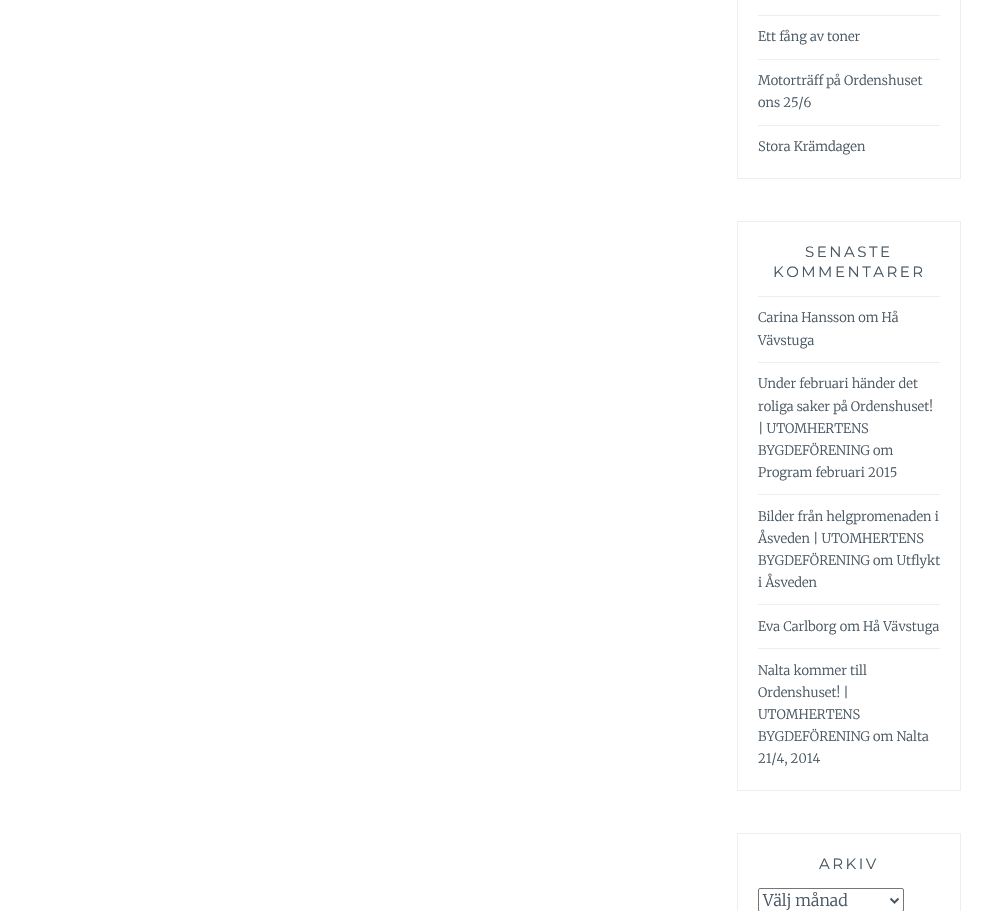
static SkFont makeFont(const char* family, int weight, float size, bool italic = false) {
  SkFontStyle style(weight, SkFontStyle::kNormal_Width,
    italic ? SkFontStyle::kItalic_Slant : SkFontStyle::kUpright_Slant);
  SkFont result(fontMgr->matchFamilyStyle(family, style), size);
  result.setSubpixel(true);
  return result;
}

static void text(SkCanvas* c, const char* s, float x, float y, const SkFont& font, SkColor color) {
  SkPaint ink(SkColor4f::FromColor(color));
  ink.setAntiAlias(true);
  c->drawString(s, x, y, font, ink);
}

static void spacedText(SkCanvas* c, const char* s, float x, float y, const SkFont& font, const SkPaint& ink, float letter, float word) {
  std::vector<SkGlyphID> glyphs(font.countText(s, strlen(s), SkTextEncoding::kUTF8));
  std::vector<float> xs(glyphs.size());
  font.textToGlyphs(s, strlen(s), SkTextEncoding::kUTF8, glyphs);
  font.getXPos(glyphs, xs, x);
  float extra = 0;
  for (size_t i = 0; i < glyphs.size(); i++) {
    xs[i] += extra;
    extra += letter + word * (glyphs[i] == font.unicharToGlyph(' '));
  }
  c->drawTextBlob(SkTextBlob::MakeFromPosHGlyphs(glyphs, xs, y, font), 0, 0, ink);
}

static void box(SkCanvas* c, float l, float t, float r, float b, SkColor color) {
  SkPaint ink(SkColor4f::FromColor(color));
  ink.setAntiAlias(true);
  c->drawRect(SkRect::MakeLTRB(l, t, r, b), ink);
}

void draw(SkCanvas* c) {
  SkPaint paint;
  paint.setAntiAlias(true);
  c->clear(0xffffffff);
  paint.setStyle(SkPaint::kStroke_Style);
  paint.setStrokeWidth(1);
  paint.setColor(0xffeeeeee);
  c->drawRect(SkRect::MakeLTRB(737.5f, -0.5f, 960.5f, 178.5f), paint);
  box(c, 758, 15, 940, 16, 0xffeeeeee);
  SkFont face1 = makeFont("Merriweather", 300, 13);
  text(c, "Ett fång av toner", 758, 41, face1, 0xff495762);
  box(c, 758, 59, 940, 60, 0xffeeeeee);
  text(c, "Motorträff på Ordenshuset", 758, 85, face1, 0xff495762);
  text(c, "ons 25/6", 758, 107, face1, 0xff495762);
  box(c, 758, 125, 940, 126, 0xffeeeeee);
  text(c, "Stora Krämdagen", 758, 151, face1, 0xff495762);
  c->drawRect(SkRect::MakeLTRB(737.5f, 221.5f, 960.5f, 790.5f), paint);
  SkFont face2 = makeFont("Montserrat", 400, 15);
  paint.setStyle(SkPaint::kFill_Style);
  paint.setColor(0xff495762);
  spacedText(c, "SENASTE", 805, 257, face2, paint, 2.5f, 0);
  spacedText(c, "KOMMENTARER", 773, 277, face2, paint, 2.5f, 0);
  box(c, 758, 296, 940, 297, 0xffeeeeee);
  text(c, "Carina Hansson om Hå", 758, 322, face1, 0xff495762);
  text(c, "Vävstuga", 758, 345, face1, 0xff495762);
  box(c, 758, 362, 940, 363, 0xffeeeeee);
  text(c, "Under februari händer det", 758, 388, face1, 0xff495762);
  text(c, "roliga saker på Ordenshuset!", 758, 411, face1, 0xff495762);
  text(c, "| UTOMHERTENS", 758, 433, face1, 0xff495762);
  text(c, "BYGDEFÖRENING om", 758, 455, face1, 0xff495762);
  text(c, "Program februari 2015", 758, 477, face1, 0xff495762);
  box(c, 758, 494, 940, 495, 0xffeeeeee);
  text(c, "Bilder från helgpromenaden i", 758, 521, face1, 0xff495762);
  text(c, "Åsveden | UTOMHERTENS", 758, 543, face1, 0xff495762);
  text(c, "BYGDEFÖRENING om Utflykt", 758, 565, face1, 0xff495762);
  text(c, "i Åsveden", 758, 587, face1, 0xff495762);
  box(c, 758, 604, 940, 605, 0xffeeeeee);
  text(c, "Eva Carlborg om Hå Vävstuga", 758, 631, face1, 0xff495762);
  box(c, 758, 648, 940, 649, 0xffeeeeee);
  text(c, "Nalta kommer till", 758, 675, face1, 0xff495762);
  text(c, "Ordenshuset! |", 758, 697, face1, 0xff495762);
  text(c, "UTOMHERTENS", 758, 719, face1, 0xff495762);
  text(c, "BYGDEFÖRENING om Nalta", 758, 741, face1, 0xff495762);
  text(c, "21/4, 2014", 758, 763, face1, 0xff495762);
  paint.setStyle(SkPaint::kStroke_Style);
  paint.setColor(0xffeeeeee);
  c->drawRect(SkRect::MakeLTRB(737.5f, 833.5f, 960.5f, 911.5f), paint);
  paint.setStyle(SkPaint::kFill_Style);
  paint.setColor(0xff495762);
  spacedText(c, "ARKIV", 819, 869, face2, paint, 2.5f, 0);
  paint.setStyle(SkPaint::kStroke_Style);
  paint.setColor(0xff767676);
  c->drawRoundRect(SkRect::MakeLTRB(758.5f, 888.5f, 903.5f, 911.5f), 1.5f, 1.5f, paint);
  paint.setStrokeWidth(2);
  paint.setColor(0xff495762);
  c->drawPath(SkPathBuilder().moveTo(890.5f, 898.5f).lineTo(894.5f, 902.5f).lineTo(898.5f, 898.5f).detach(), paint);
  SkFont face3 = makeFont("Merriweather", 300, 16);
  text(c, "Välj månad", 763, 906, face3, 0xff495762);
}
